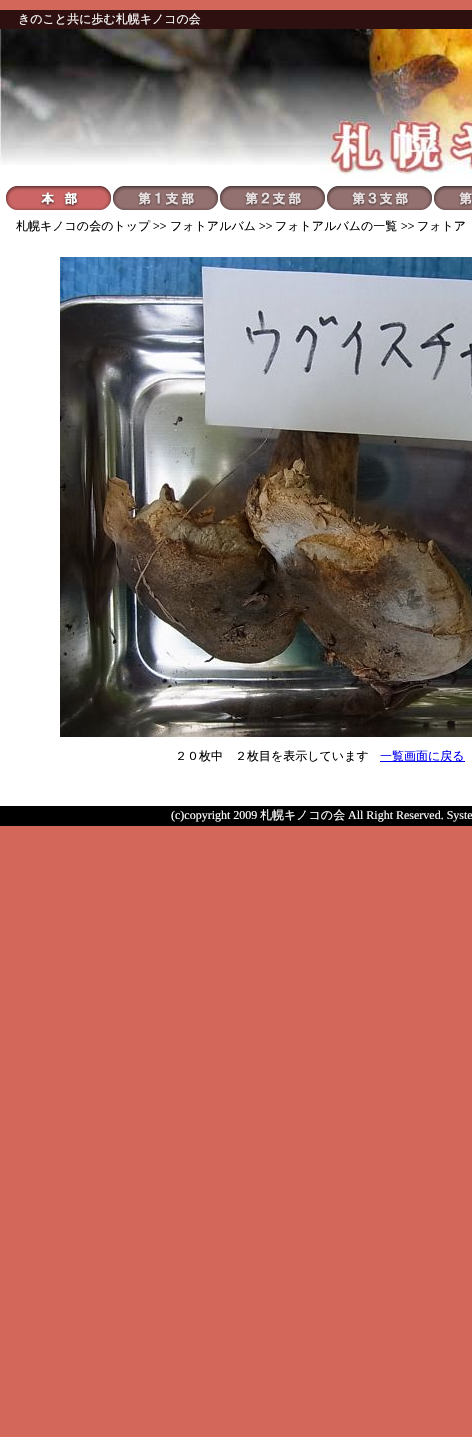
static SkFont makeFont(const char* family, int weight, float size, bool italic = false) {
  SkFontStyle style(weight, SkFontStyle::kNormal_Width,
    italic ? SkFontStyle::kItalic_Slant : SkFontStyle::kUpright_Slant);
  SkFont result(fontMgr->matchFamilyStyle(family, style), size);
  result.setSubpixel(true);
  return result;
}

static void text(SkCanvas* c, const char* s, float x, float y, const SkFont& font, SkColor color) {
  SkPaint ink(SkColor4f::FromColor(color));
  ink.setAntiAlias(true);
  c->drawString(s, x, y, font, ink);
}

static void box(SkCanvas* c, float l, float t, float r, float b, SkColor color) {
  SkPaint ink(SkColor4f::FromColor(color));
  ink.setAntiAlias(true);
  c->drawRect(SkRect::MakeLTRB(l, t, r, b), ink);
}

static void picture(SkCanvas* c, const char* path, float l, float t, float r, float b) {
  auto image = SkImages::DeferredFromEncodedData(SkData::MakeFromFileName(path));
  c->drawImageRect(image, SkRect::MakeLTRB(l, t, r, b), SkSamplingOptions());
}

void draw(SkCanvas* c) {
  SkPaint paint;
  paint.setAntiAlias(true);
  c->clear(0xffd3675a);
  box(c, 0, 179, 472, 806, 0xffffffff);
  box(c, 0, 10, 472, 29, 0xff2e1010);
  SkFont face1 = makeFont("WenQuanYi Zen Hei", 500, 12);
  text(c, "きのこと共に歩む札幌キノコの会", 18, 23, face1, 0xffffffff);
  picture(c, "img_01.png", 0, 29, 472, 179);
  picture(c, "img_02.png", 6, 186, 111, 210);
  picture(c, "img_03.png", 113, 186, 218, 210);
  picture(c, "img_04.png", 220, 186, 325, 210);
  picture(c, "img_05.png", 327, 186, 432, 210);
  picture(c, "img_06.png", 434, 186, 472, 210);
  text(c, "札幌キノコの会のトップ", 16, 230, face1, 0xff000000);
  SkFont face2 = makeFont("Liberation Serif", 400, 12);
  text(c, ">>", 153, 230, face2, 0xff000000);
  text(c, "フォトアルバム", 170, 230, face1, 0xff000000);
  text(c, ">>", 259, 230, face2, 0xff000000);
  text(c, "フォトアルバムの一覧", 275, 230, face1, 0xff000000);
  text(c, ">>", 401, 230, face2, 0xff000000);
  text(c, "フォトア", 417, 230, face1, 0xff000000);
  picture(c, "img_07.png", 60, 257, 472, 737);
  text(c, "２０枚中　２枚目を表示しています", 175, 760, face1, 0xff000000);
  box(c, 380, 761, 465, 762, 0xff0000ee);
  text(c, "一覧画面に戻る", 380, 760, face1, 0xff0000ee);
  box(c, 0, 806, 472, 826, 0xff000000);
  text(c, "(c)copyright 2009", 171, 819, face2, 0xffffffff);
  text(c, "札幌キノコの会", 260, 819, face1, 0xffffffff);
  text(c, "All Right Reserved. Syste", 348, 819, face2, 0xffffffff);
}
